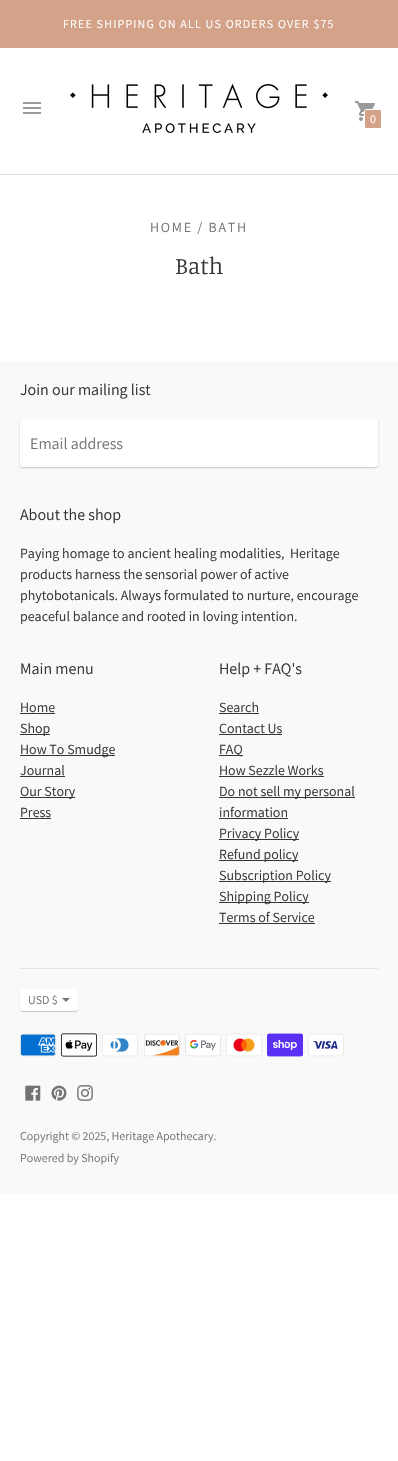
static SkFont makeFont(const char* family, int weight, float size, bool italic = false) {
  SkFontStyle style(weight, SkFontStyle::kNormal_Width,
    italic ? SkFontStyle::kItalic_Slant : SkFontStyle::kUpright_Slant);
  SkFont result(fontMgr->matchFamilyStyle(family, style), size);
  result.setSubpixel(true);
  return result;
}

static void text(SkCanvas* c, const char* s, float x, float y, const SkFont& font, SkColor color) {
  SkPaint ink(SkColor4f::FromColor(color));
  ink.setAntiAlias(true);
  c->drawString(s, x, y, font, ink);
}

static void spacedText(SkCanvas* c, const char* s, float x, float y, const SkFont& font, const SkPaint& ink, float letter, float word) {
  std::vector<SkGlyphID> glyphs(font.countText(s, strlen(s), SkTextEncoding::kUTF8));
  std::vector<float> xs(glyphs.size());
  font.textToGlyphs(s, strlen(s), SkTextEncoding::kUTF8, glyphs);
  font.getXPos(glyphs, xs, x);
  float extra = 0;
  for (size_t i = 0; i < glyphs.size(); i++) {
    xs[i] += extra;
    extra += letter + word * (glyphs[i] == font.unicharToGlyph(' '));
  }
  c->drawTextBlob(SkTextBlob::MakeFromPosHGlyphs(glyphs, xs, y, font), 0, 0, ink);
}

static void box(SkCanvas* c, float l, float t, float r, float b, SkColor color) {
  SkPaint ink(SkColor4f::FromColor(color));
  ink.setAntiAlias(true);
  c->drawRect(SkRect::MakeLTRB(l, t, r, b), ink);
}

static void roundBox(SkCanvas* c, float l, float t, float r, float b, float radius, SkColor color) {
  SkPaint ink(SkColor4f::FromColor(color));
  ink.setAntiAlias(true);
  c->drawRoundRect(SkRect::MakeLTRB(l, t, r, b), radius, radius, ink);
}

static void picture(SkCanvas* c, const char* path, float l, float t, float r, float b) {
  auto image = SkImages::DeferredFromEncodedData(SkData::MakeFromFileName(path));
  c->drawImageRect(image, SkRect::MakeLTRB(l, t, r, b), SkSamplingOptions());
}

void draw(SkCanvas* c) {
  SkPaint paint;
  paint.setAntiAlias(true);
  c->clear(0xffffffff);
  box(c, 0, 0, 398, 48, 0xffd4a189);
  SkFont face1 = makeFont("Assistant", 400, 12);
  paint.setColor(0xffffffff);
  spacedText(c, "FREE SHIPPING ON ALL US ORDERS OVER $75", 63, 28, face1, paint, 1.2f, 0);
  box(c, 0, 174, 398, 175, 0xffe2e2e2);
  picture(c, "img_01.png", 23, 102, 41, 114);
  picture(c, "img_02.png", 70, 83, 328, 134);
  picture(c, "img_03.png", 355, 101, 375, 121);
  paint.setColor(0xffd4a189);
  c->drawRoundRect(SkRect::MakeLTRB(364.5f, 109.5f, 381.5f, 128.5f), 1.5f, 1.5f, paint);
  paint.setStyle(SkPaint::kStroke_Style);
  paint.setStrokeWidth(1);
  paint.setColor(0xffffffff);
  c->drawRoundRect(SkRect::MakeLTRB(364.5f, 109.5f, 381.5f, 128.5f), 1.5f, 1.5f, paint);
  text(c, "0", 370, 123, face1, 0xffffffff);
  SkFont face2 = makeFont("Assistant", 400, 14);
  paint.setStyle(SkPaint::kFill_Style);
  paint.setColor(0xff757575);
  spacedText(c, "HOME / BATH", 150, 232, face2, paint, 1.75f, 0);
  SkFont face3 = makeFont("Manuale", 300, 24);
  text(c, "Bath", 175, 274, face3, 0xff363636);
  box(c, 0, 361, 398, 1193, 0xfff9f9f9);
  SkFont face4 = makeFont("Assistant", 400, 16);
  text(c, "Join our mailing list", 20, 395, face4, 0xff363636);
  paint.setColor(0x33000000);
  paint.setMaskFilter(SkMaskFilter::MakeBlur(kNormal_SkBlurStyle, 1));
  c->drawRoundRect(SkRect::MakeLTRB(20, 420, 378, 468), 3, 3, paint);
  paint.setMaskFilter(nullptr);
  roundBox(c, 20, 419, 378, 467, 3, 0xffffffff);
  text(c, "Email address", 30, 449, face4, 0xff757575);
  text(c, "About the shop", 20, 520, face4, 0xff363636);
  text(c, "Paying homage to ancient healing modalities,  Heritage", 20, 558, face2, 0xff363636);
  text(c, "products harness the sensorial power of active", 20, 579, face2, 0xff363636);
  text(c, "phytobotanicals. Always formulated to nurture, encourage", 20, 600, face2, 0xff363636);
  text(c, "peaceful balance and rooted in loving intention.", 20, 621, face2, 0xff363636);
  text(c, "Main menu", 20, 674, face4, 0xff363636);
  text(c, "Home", 20, 712, face2, 0xff363636);
  box(c, 20, 713, 55, 714, 0xff363636);
  box(c, 20, 734, 50, 735, 0xff363636);
  text(c, "Shop", 20, 733, face2, 0xff363636);
  box(c, 20, 755, 115, 756, 0xff363636);
  text(c, "How To Smudge", 20, 754, face2, 0xff363636);
  text(c, "Journal", 20, 775, face2, 0xff363636);
  box(c, 20, 776, 65, 777, 0xff363636);
  box(c, 20, 797, 75, 798, 0xff363636);
  text(c, "Our Story", 20, 796, face2, 0xff363636);
  text(c, "Press", 20, 817, face2, 0xff363636);
  box(c, 20, 818, 51, 819, 0xff363636);
  text(c, "Help + FAQ's", 219, 674, face4, 0xff363636);
  text(c, "Search", 219, 712, face2, 0xff363636);
  box(c, 219, 713, 259, 714, 0xff363636);
  text(c, "Contact Us", 219, 733, face2, 0xff363636);
  box(c, 219, 734, 282, 735, 0xff363636);
  box(c, 219, 755, 243, 756, 0xff363636);
  text(c, "FAQ", 219, 754, face2, 0xff363636);
  text(c, "How Sezzle Works", 219, 775, face2, 0xff363636);
  box(c, 219, 776, 324, 777, 0xff363636);
  box(c, 219, 797, 355, 798, 0xff363636);
  text(c, "Do not sell my personal", 219, 796, face2, 0xff363636);
  text(c, "information", 219, 817, face2, 0xff363636);
  box(c, 219, 818, 288, 819, 0xff363636);
  box(c, 219, 839, 299, 840, 0xff363636);
  text(c, "Privacy Policy", 219, 838, face2, 0xff363636);
  box(c, 219, 860, 298, 861, 0xff363636);
  text(c, "Refund policy", 219, 859, face2, 0xff363636);
  box(c, 219, 881, 331, 882, 0xff363636);
  text(c, "Subscription Policy", 219, 880, face2, 0xff363636);
  box(c, 219, 902, 309, 903, 0xff363636);
  text(c, "Shipping Policy", 219, 901, face2, 0xff363636);
  text(c, "Terms of Service", 219, 922, face2, 0xff363636);
  box(c, 219, 923, 315, 924, 0xff363636);
  box(c, 20, 968, 378, 969, 0xffe2e2e2);
  paint.setMaskFilter(SkMaskFilter::MakeBlur(kNormal_SkBlurStyle, 0.5f));
  c->drawRoundRect(SkRect::MakeLTRB(20, 990, 78, 1012), 3, 3, paint);
  paint.setMaskFilter(nullptr);
  roundBox(c, 20, 989, 78, 1011, 3, 0xffffffff);
  text(c, "USD $", 28, 1004, face1, 0xff757575);
  paint.setColor(0xff757575);
  c->drawPath(SkPathBuilder().moveTo(66, 1002).lineTo(70, 998).lineTo(62, 998).close().detach(), paint);
  picture(c, "img_04.png", 20, 1033, 56, 1057);
  picture(c, "img_05.png", 61, 1033, 97, 1057);
  picture(c, "img_06.png", 102, 1033, 138, 1057);
  picture(c, "img_07.png", 144, 1033, 180, 1057);
  picture(c, "img_08.png", 185, 1033, 221, 1057);
  picture(c, "img_09.png", 226, 1033, 262, 1057);
  picture(c, "img_10.png", 267, 1033, 303, 1057);
  picture(c, "img_11.png", 308, 1033, 344, 1057);
  picture(c, "img_12.png", 25, 1085, 41, 1101);
  picture(c, "img_13.png", 51, 1085, 67, 1101);
  picture(c, "img_14.png", 77, 1085, 93, 1101);
  text(c, "Copyright © 2025, Heritage Apothecary.", 20, 1140, face1, 0xff757575);
  text(c, "Powered by Shopify", 20, 1162, face1, 0xff757575);
}
